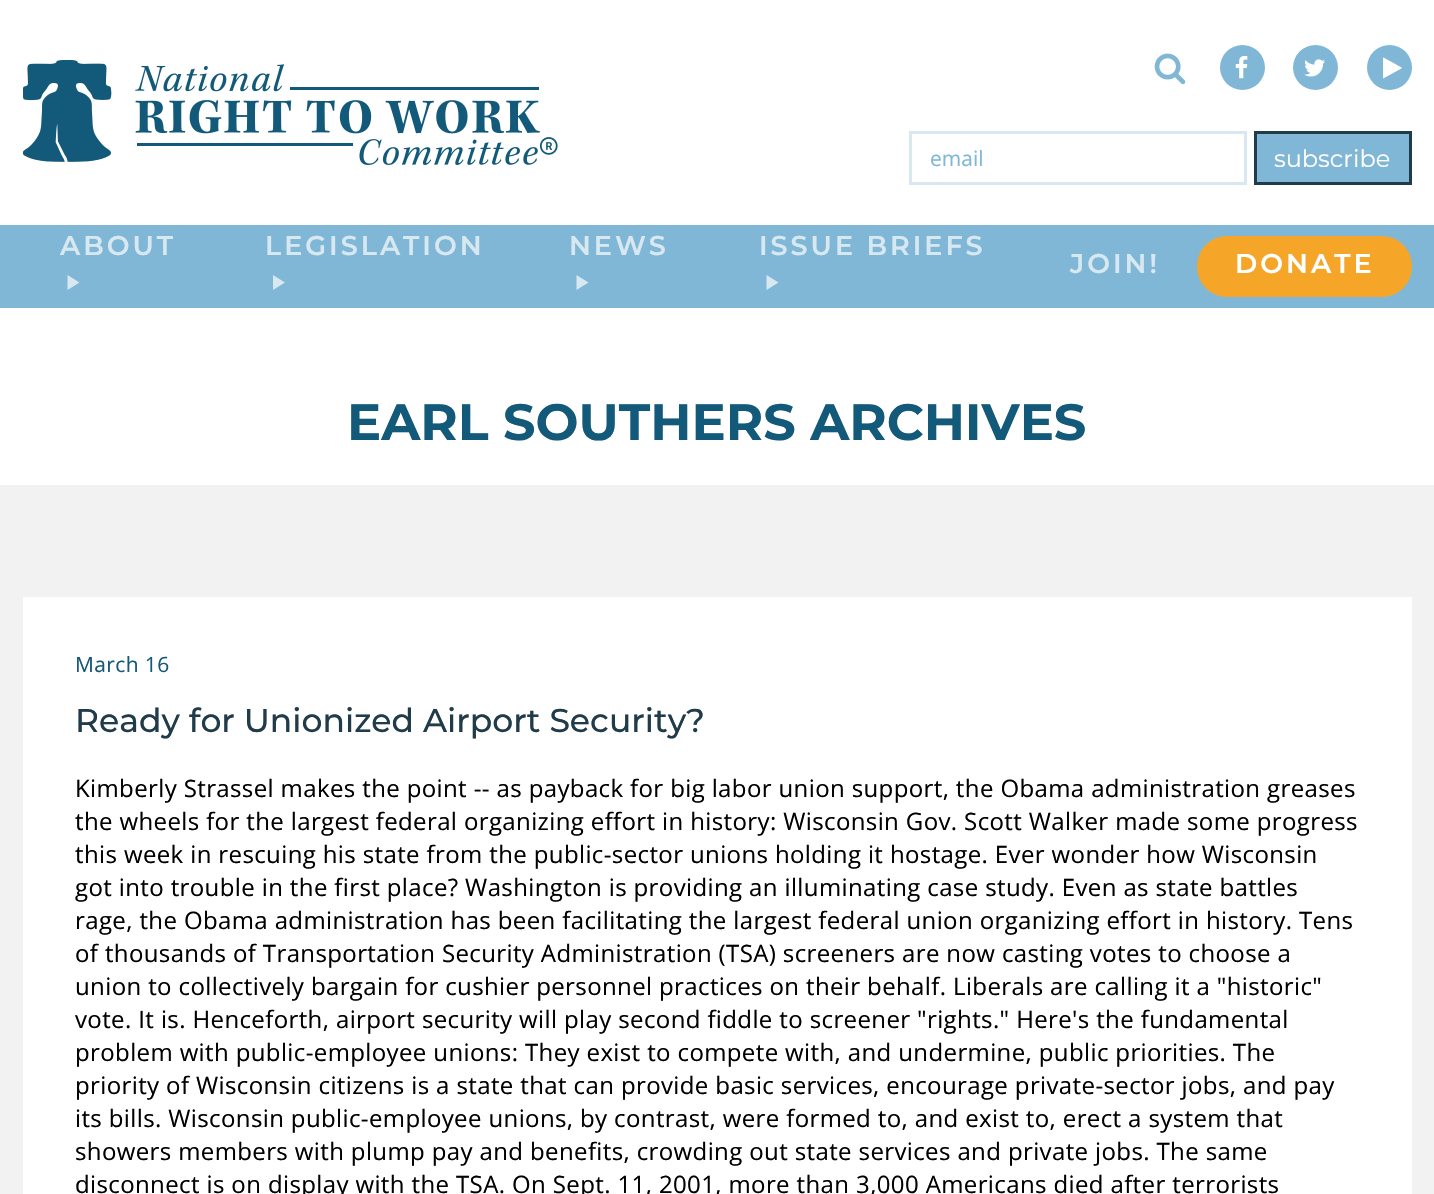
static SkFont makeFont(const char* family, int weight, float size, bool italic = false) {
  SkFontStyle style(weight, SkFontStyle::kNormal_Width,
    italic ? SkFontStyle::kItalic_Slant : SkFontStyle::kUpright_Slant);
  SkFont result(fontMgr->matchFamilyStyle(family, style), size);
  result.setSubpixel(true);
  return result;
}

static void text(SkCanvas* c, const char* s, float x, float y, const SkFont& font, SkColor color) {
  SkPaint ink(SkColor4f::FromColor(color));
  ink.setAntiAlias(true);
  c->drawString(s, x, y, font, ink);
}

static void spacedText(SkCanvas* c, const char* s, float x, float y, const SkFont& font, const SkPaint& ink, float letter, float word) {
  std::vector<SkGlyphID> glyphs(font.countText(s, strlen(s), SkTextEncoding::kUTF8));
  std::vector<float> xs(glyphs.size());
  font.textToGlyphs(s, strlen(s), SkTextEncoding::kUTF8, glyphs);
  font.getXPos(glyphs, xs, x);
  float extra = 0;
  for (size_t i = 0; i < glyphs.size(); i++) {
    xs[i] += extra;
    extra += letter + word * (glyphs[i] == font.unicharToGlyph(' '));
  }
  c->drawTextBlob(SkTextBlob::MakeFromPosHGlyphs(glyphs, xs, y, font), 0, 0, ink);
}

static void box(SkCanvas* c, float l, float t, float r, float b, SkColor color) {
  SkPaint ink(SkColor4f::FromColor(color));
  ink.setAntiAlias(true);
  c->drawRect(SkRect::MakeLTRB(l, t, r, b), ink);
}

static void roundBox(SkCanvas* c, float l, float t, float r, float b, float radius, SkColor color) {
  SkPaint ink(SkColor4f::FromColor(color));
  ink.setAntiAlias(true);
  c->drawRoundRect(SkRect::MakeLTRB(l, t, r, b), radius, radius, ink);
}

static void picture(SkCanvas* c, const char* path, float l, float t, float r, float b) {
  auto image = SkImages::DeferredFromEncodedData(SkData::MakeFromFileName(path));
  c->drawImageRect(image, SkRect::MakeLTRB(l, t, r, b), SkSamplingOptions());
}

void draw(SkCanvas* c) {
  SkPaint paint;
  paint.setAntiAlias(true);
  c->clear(0xffffffff);
  picture(c, "img_01.png", 23, 60, 558, 165);
  picture(c, "img_02.png", 1154, 53, 1186, 85);
  paint.setColor(0xff80b7d7);
  c->drawCircle(1242.5f, 67.5f, 22.5f, paint);
  picture(c, "img_03.png", 1235, 55, 1248, 79);
  c->drawCircle(1315.5f, 67.5f, 22.5f, paint);
  picture(c, "img_04.png", 1304, 59, 1325, 77);
  c->drawCircle(1389.5f, 67.5f, 22.5f, paint);
  picture(c, "img_05.png", 1383, 57, 1402, 79);
  paint.setStyle(SkPaint::kStroke_Style);
  paint.setStrokeWidth(3);
  paint.setColor(0xffd8e8f1);
  c->drawRect(SkRect::MakeLTRB(910.5f, 132.5f, 1245.5f, 183.5f), paint);
  SkFont face1 = makeFont("Open Sans", 400, 21);
  text(c, "email", 930, 166, face1, 0xff80b7d7);
  paint.setStyle(SkPaint::kFill_Style);
  paint.setColor(0xff80b7d7);
  c->drawRect(SkRect::MakeLTRB(1255.5f, 132.5f, 1410.5f, 183.5f), paint);
  paint.setStyle(SkPaint::kStroke_Style);
  paint.setColor(0xff203b49);
  c->drawRect(SkRect::MakeLTRB(1255.5f, 132.5f, 1410.5f, 183.5f), paint);
  SkFont face2 = makeFont("Montserrat", 400, 24);
  text(c, "subscribe", 1274, 167, face2, 0xffffffff);
  box(c, 0, 225, 1434, 308, 0xff80b7d7);
  SkFont face3 = makeFont("Montserrat", 600, 27);
  paint.setStyle(SkPaint::kFill_Style);
  paint.setColor(0xffd8e8f1);
  spacedText(c, "ABOUT", 60, 255, face3, paint, 3, 0);
  c->drawPath(SkPathBuilder().moveTo(67.5f, 290).lineTo(67.5f, 275).lineTo(79.5f, 282.5f).close().detach(), paint);
  spacedText(c, "LEGISLATION", 265, 255, face3, paint, 3, 0);
  c->drawPath(SkPathBuilder().moveTo(273, 290).lineTo(273, 275).lineTo(285, 282.5f).close().detach(), paint);
  spacedText(c, "NEWS", 569, 255, face3, paint, 3, 0);
  c->drawPath(SkPathBuilder().moveTo(576.5f, 290).lineTo(576.5f, 275).lineTo(588.5f, 282.5f).close().detach(), paint);
  spacedText(c, "ISSUE BRIEFS", 759, 255, face3, paint, 3, 0);
  c->drawPath(SkPathBuilder().moveTo(766.5f, 290).lineTo(766.5f, 275).lineTo(778.5f, 282.5f).close().detach(), paint);
  spacedText(c, "JOIN!", 1070, 273, face3, paint, 3, 0);
  roundBox(c, 1197, 236, 1412, 297, 30, 0xfff5a628);
  paint.setColor(0xffffffff);
  spacedText(c, "DONATE", 1235, 273, face3, paint, 3, 0);
  SkFont face4 = makeFont("Montserrat", 700, 51);
  text(c, "EARL SOUTHERS ARCHIVES", 347, 440, face4, 0xff135979);
  box(c, 0, 485, 1434, 1194, 0xfff2f2f2);
  box(c, 23, 597, 1412, 1194, 0xffffffff);
  paint.setColor(0xff135979);
  spacedText(c, "March 16", 75, 672, face1, paint, 0.38f, 0);
  SkFont face5 = makeFont("Montserrat", 500, 33);
  text(c, "Ready for Unionized Airport Security?", 75, 732, face5, 0xff203b49);
  SkFont face6 = makeFont("Open Sans", 400, 24);
  paint.setColor(0xff000000);
  spacedText(c, "Kimberly Strassel makes the point -- as payback for big labor union support, the Obama administration greases", 75, 797, face6, paint, 0.38f, 0);
  spacedText(c, "the wheels for the largest federal organizing effort in history: Wisconsin Gov. Scott Walker made some progress", 75, 830, face6, paint, 0.38f, 0);
  spacedText(c, "this week in rescuing his state from the public-sector unions holding it hostage. Ever wonder how Wisconsin", 75, 863, face6, paint, 0.38f, 0);
  spacedText(c, "got into trouble in the first place? Washington is providing an illuminating case study. Even as state battles", 75, 896, face6, paint, 0.38f, 0);
  spacedText(c, "rage, the Obama administration has been facilitating the largest federal union organizing effort in history. Tens", 75, 929, face6, paint, 0.38f, 0);
  spacedText(c, "of thousands of Transportation Security Administration (TSA) screeners are now casting votes to choose a", 75, 962, face6, paint, 0.38f, 0);
  spacedText(c, "union to collectively bargain for cushier personnel practices on their behalf. Liberals are calling it a \"historic\"", 75, 995, face6, paint, 0.38f, 0);
  spacedText(c, "vote. It is. Henceforth, airport security will play second fiddle to screener \"rights.\" Here's the fundamental", 75, 1028, face6, paint, 0.38f, 0);
  spacedText(c, "problem with public-employee unions: They exist to compete with, and undermine, public priorities. The", 75, 1061, face6, paint, 0.38f, 0);
  spacedText(c, "priority of Wisconsin citizens is a state that can provide basic services, encourage private-sector jobs, and pay", 75, 1094, face6, paint, 0.38f, 0);
  spacedText(c, "its bills. Wisconsin public-employee unions, by contrast, were formed to, and exist to, erect a system that", 75, 1127, face6, paint, 0.38f, 0);
  spacedText(c, "showers members with plump pay and benefits, crowding out state services and private jobs. The same", 75, 1160, face6, paint, 0.38f, 0);
  spacedText(c, "disconnect is on display with the TSA. On Sept. 11, 2001, more than 3,000 Americans died after terrorists", 75, 1193, face6, paint, 0.38f, 0);
}
